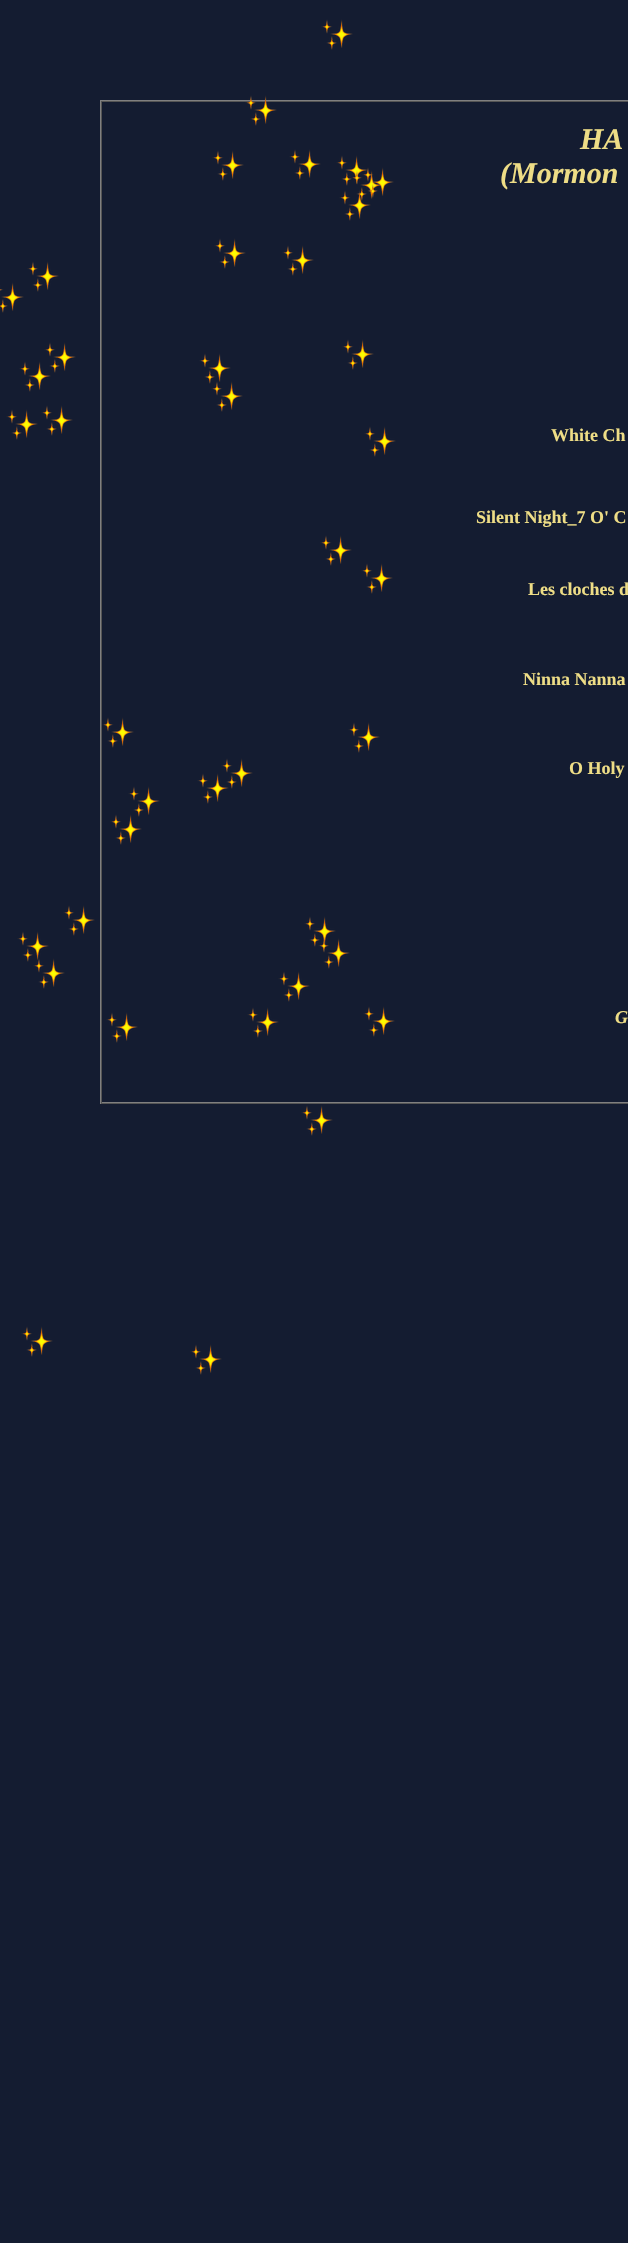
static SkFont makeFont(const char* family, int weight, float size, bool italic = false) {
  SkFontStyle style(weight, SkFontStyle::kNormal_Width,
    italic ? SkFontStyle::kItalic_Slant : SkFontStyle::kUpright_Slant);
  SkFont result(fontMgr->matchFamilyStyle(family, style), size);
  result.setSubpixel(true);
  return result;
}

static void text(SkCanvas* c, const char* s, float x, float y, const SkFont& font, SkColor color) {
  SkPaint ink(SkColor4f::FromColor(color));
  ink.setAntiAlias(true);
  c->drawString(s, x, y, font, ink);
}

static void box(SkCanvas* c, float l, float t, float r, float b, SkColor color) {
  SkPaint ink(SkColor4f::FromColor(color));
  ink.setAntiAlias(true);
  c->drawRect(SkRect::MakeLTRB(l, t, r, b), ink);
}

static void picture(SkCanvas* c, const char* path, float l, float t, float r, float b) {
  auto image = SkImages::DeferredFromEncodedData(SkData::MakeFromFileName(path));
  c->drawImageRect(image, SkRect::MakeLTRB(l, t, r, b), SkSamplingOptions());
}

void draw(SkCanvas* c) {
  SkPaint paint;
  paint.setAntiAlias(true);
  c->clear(0xff141c31);
  picture(c, "img_01.png", 321, 19, 353, 50);
  box(c, 100, 100, 628, 101, 0xff808080);
  box(c, 101, 101, 628, 102, 0xff555555);
  picture(c, "img_02.png", 245, 95, 277, 126);
  picture(c, "img_01.png", 212, 150, 244, 181);
  picture(c, "img_01.png", 289, 149, 321, 180);
  picture(c, "img_01.png", 336, 155, 368, 186);
  picture(c, "img_01.png", 339, 190, 371, 221);
  picture(c, "img_04.png", 351, 170, 383, 201);
  picture(c, "img_03.png", 362, 167, 394, 198);
  box(c, 100, 1103, 628, 1104, 0xff555555);
  box(c, 100, 100, 101, 1104, 0xff808080);
  box(c, 101, 1102, 628, 1103, 0xff808080);
  box(c, 101, 101, 102, 1103, 0xff555555);
  SkFont face1 = makeFont("Liberation Serif", 700, 30, true);
  text(c, "HA", 580, 149, face1, 0xffeedd86);
  text(c, "(Mormon", 500, 183, face1, 0xffeedd86);
  SkFont face2 = makeFont("Liberation Serif", 700, 18);
  text(c, "White Ch", 551, 441, face2, 0xffeedd86);
  text(c, "Silent Night_7 O' C", 476, 523, face2, 0xffeedd86);
  text(c, "Les cloches d", 528, 595, face2, 0xffeedd86);
  text(c, "Ninna Nanna", 523, 685, face2, 0xffeedd86);
  text(c, "O Holy", 569, 774, face2, 0xffeedd86);
  SkFont face3 = makeFont("Liberation Serif", 700, 18, true);
  text(c, "G", 615, 1023, face3, 0xffeedd86);
  picture(c, "img_01.png", 27, 261, 59, 292);
  picture(c, "img_01.png", 214, 238, 246, 269);
  picture(c, "img_01.png", 282, 245, 314, 276);
  picture(c, "img_05.png", 0, 282, 24, 313);
  picture(c, "img_01.png", 44, 342, 76, 373);
  picture(c, "img_06.png", 19, 361, 51, 392);
  picture(c, "img_01.png", 199, 353, 231, 384);
  picture(c, "img_01.png", 342, 339, 374, 370);
  picture(c, "img_07.png", 211, 381, 243, 412);
  picture(c, "img_01.png", 6, 409, 38, 440);
  picture(c, "img_01.png", 41, 405, 73, 436);
  picture(c, "img_01.png", 364, 426, 396, 457);
  picture(c, "img_01.png", 320, 535, 352, 566);
  picture(c, "img_01.png", 361, 563, 393, 594);
  picture(c, "img_01.png", 102, 717, 134, 748);
  picture(c, "img_01.png", 348, 722, 380, 753);
  picture(c, "img_01.png", 128, 786, 160, 817);
  picture(c, "img_01.png", 221, 758, 253, 789);
  picture(c, "img_08.png", 197, 773, 229, 804);
  picture(c, "img_09.png", 110, 814, 142, 845);
  picture(c, "img_01.png", 33, 958, 65, 989);
  picture(c, "img_10.png", 17, 931, 49, 962);
  picture(c, "img_01.png", 63, 905, 95, 936);
  picture(c, "img_01.png", 318, 938, 350, 969);
  picture(c, "img_11.png", 304, 916, 336, 947);
  picture(c, "img_01.png", 278, 971, 310, 1002);
  picture(c, "img_01.png", 106, 1012, 138, 1043);
  picture(c, "img_01.png", 247, 1007, 279, 1038);
  picture(c, "img_01.png", 363, 1006, 395, 1037);
  picture(c, "img_01.png", 301, 1105, 333, 1136);
  picture(c, "img_01.png", 21, 1326, 53, 1357);
  picture(c, "img_01.png", 190, 1344, 222, 1375);
}
